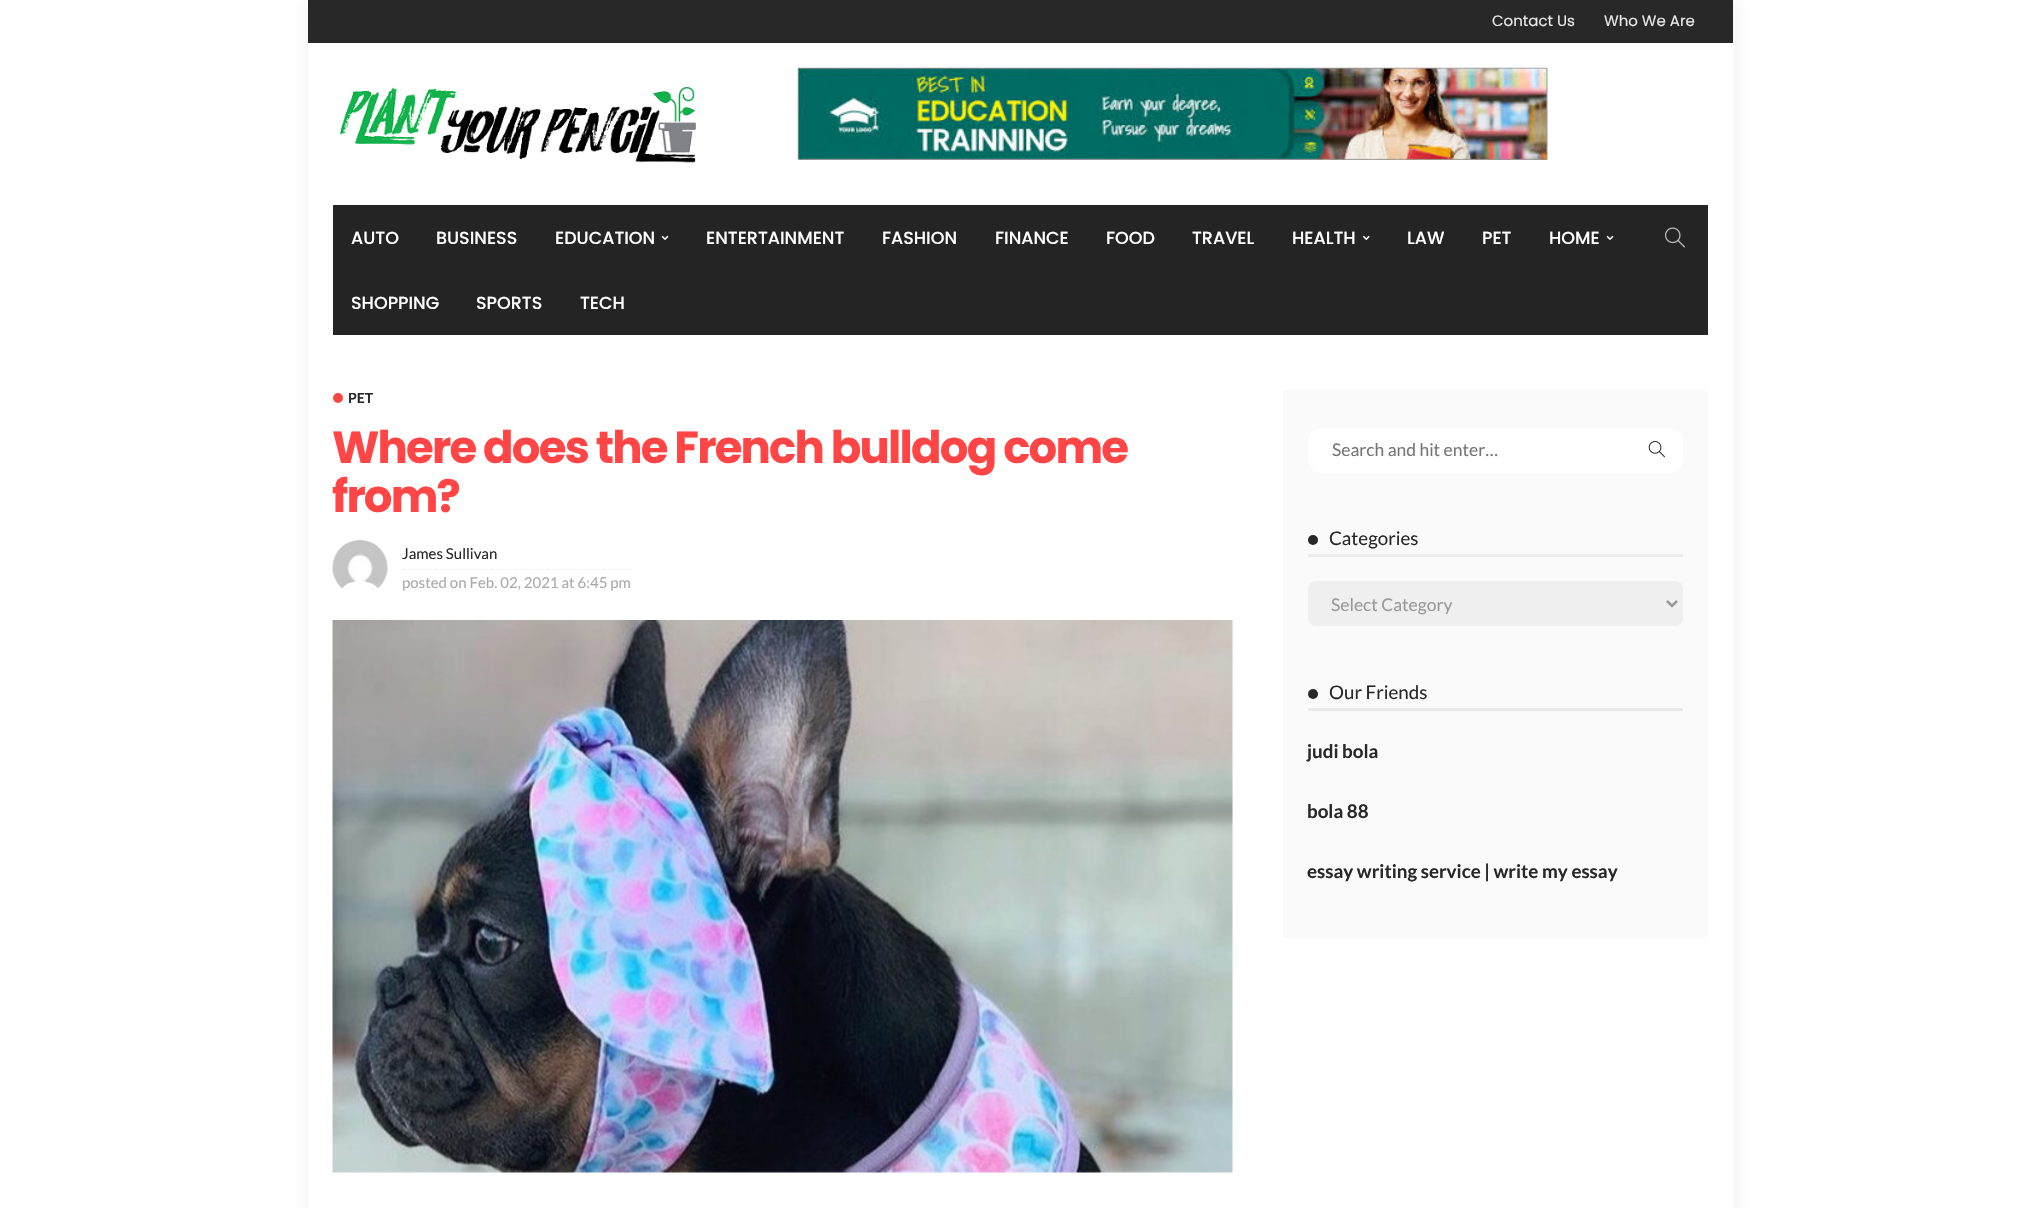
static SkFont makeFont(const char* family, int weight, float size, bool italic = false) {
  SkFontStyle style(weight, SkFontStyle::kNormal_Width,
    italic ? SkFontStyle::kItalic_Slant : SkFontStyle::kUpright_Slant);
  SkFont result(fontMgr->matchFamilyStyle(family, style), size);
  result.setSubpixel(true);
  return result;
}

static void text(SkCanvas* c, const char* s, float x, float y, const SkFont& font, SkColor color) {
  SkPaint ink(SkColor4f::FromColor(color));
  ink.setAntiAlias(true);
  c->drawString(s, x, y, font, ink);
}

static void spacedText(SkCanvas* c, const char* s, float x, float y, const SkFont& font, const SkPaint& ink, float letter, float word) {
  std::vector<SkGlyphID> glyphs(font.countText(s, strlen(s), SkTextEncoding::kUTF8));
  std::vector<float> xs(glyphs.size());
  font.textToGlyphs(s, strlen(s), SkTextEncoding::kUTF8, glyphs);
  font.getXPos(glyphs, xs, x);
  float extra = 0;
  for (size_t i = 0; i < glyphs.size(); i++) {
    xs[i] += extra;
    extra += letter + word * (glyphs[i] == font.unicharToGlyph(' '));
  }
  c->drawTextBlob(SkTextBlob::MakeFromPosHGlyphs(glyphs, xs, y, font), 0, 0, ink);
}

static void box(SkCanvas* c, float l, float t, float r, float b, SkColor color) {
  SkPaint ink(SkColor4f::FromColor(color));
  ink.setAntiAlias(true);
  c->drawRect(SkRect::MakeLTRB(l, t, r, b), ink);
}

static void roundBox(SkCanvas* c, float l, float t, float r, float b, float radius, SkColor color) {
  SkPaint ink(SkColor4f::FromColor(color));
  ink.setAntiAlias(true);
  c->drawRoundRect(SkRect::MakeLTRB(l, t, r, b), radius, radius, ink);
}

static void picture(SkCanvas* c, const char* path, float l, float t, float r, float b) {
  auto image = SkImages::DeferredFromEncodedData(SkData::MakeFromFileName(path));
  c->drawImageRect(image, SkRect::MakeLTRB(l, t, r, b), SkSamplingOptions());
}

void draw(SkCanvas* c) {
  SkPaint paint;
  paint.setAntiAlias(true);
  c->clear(0xffffffff);
  paint.setColor(0x121c1c1c);
  paint.setMaskFilter(SkMaskFilter::MakeBlur(kNormal_SkBlurStyle, 9.5f));
  c->drawRect(SkRect::MakeLTRB(309, 1, 1734, 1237), paint);
  paint.setMaskFilter(nullptr);
  box(c, 308, 43, 1733, 1208, 0xffffffff);
  box(c, 308, 0, 1733, 43, 0xff282828);
  SkFont face1 = makeFont("Poppins", 400, 15);
  text(c, "Contact Us", 1492, 26, face1, 0xffeaeaea);
  text(c, "Who We Are", 1604, 26, face1, 0xffeaeaea);
  picture(c, "img_01.png", 340, 86, 696, 163);
  picture(c, "img_02.png", 797, 67, 1548, 160);
  box(c, 333, 205, 1708, 335, 0xff242424);
  SkFont face2 = makeFont("Poppins", 500, 17.5f);
  text(c, "AUTO", 351, 244, face2, 0xffffffff);
  text(c, "BUSINESS", 436, 244, face2, 0xffffffff);
  text(c, "EDUCATION", 555, 244, face2, 0xffffffff);
  picture(c, "img_03.png", 661, 235, 669, 240);
  text(c, "ENTERTAINMENT", 706, 244, face2, 0xffffffff);
  text(c, "FASHION", 882, 244, face2, 0xffffffff);
  text(c, "FINANCE", 995, 244, face2, 0xffffffff);
  text(c, "FOOD", 1106, 244, face2, 0xffffffff);
  text(c, "TRAVEL", 1192, 244, face2, 0xffffffff);
  text(c, "HEALTH", 1292, 244, face2, 0xffffffff);
  picture(c, "img_04.png", 1362, 235, 1370, 241);
  text(c, "LAW", 1407, 244, face2, 0xffffffff);
  text(c, "PET", 1482, 244, face2, 0xffffffff);
  text(c, "HOME", 1549, 244, face2, 0xffffffff);
  picture(c, "img_03.png", 1606, 235, 1614, 240);
  text(c, "SHOPPING", 351, 309, face2, 0xffffffff);
  text(c, "SPORTS", 476, 309, face2, 0xffffffff);
  text(c, "TECH", 580, 309, face2, 0xffffffff);
  picture(c, "img_05.png", 1665, 227, 1685, 248);
  paint.setColor(0xffff4545);
  c->drawCircle(338, 398, 5, paint);
  SkFont face3 = makeFont("Lato", 700, 14);
  text(c, "PET", 348, 403, face3, 0xff282828);
  SkFont face4 = makeFont("Poppins", 700, 45);
  spacedText(c, "Where does the French bulldog come", 332, 463, face4, paint, -1.8f, 0);
  spacedText(c, "from?", 332, 512, face4, paint, -1.8f, 0);
  picture(c, "img_06.png", 332, 540, 388, 589);
  SkFont face5 = makeFont("Lato", 400, 15);
  text(c, "James Sullivan", 402, 559, face5, 0xff282828);
  paint.setStyle(SkPaint::kStroke_Style);
  paint.setStrokeWidth(1.2f);
  paint.setColor(0xffefefef);
  paint.setPathEffect(SkDashPathEffect::Make({{3.75f, 2.5f}}, 0));
  c->drawPath(SkPathBuilder().moveTo(402.5f, 569.5f).lineTo(631, 569.5f).detach(), paint);
  paint.setPathEffect(nullptr);
  text(c, "posted on Feb. 02, 2021 at 6:45 pm", 402, 588, face5, 0xffaaaaaa);
  picture(c, "img_07.png", 332, 620, 1233, 1173);
  roundBox(c, 1283, 390, 1708, 938, 2.5f, 0xfffafafa);
  roundBox(c, 1308, 428, 1683, 473, 13, 0xffffffff);
  SkFont face6 = makeFont("Lato", 400, 17.5f);
  text(c, "Search and hit enter…", 1332, 456, face6, 0xff757575);
  picture(c, "img_08.png", 1648, 441, 1665, 458);
  box(c, 1308, 554, 1683, 557, 0xffeaeaea);
  paint.setStyle(SkPaint::kFill_Style);
  paint.setColor(0xff282828);
  c->drawCircle(1313, 540, 5, paint);
  SkFont face7 = makeFont("Lato", 400, 18.75f);
  text(c, "Categories", 1329, 545, face7, 0xff282828);
  roundBox(c, 1308, 581, 1683, 626, 8, 0xffefefef);
  paint.setStyle(SkPaint::kStroke_Style);
  paint.setStrokeWidth(2.5f);
  paint.setColor(0xff999999);
  c->drawPath(SkPathBuilder().moveTo(1667, 601).lineTo(1672, 606).lineTo(1677, 601).detach(), paint);
  text(c, "Select Category", 1331, 611, face6, 0xff999999);
  box(c, 1308, 708, 1683, 711, 0xffeaeaea);
  paint.setStyle(SkPaint::kFill_Style);
  paint.setColor(0xff282828);
  c->drawCircle(1313, 694, 5, paint);
  text(c, "Our Friends", 1329, 699, face7, 0xff282828);
  SkFont face8 = makeFont("Lato", 700, 18.75f);
  text(c, "judi bola", 1307, 758, face8, 0xff282828);
  text(c, "bola 88", 1307, 818, face8, 0xff282828);
  text(c, "essay writing service | write my essay", 1307, 878, face8, 0xff282828);
}
